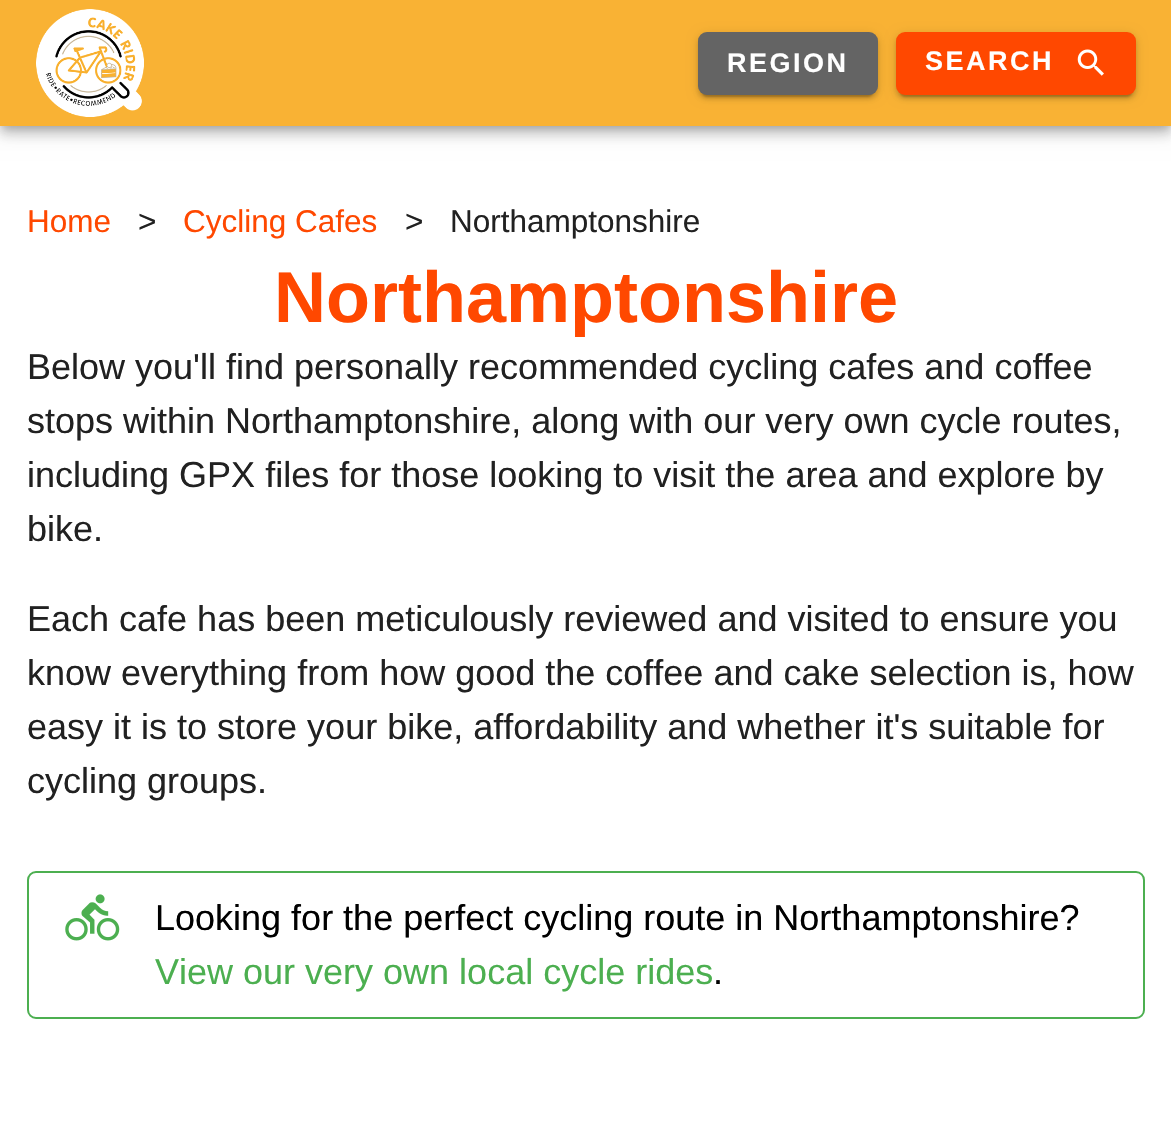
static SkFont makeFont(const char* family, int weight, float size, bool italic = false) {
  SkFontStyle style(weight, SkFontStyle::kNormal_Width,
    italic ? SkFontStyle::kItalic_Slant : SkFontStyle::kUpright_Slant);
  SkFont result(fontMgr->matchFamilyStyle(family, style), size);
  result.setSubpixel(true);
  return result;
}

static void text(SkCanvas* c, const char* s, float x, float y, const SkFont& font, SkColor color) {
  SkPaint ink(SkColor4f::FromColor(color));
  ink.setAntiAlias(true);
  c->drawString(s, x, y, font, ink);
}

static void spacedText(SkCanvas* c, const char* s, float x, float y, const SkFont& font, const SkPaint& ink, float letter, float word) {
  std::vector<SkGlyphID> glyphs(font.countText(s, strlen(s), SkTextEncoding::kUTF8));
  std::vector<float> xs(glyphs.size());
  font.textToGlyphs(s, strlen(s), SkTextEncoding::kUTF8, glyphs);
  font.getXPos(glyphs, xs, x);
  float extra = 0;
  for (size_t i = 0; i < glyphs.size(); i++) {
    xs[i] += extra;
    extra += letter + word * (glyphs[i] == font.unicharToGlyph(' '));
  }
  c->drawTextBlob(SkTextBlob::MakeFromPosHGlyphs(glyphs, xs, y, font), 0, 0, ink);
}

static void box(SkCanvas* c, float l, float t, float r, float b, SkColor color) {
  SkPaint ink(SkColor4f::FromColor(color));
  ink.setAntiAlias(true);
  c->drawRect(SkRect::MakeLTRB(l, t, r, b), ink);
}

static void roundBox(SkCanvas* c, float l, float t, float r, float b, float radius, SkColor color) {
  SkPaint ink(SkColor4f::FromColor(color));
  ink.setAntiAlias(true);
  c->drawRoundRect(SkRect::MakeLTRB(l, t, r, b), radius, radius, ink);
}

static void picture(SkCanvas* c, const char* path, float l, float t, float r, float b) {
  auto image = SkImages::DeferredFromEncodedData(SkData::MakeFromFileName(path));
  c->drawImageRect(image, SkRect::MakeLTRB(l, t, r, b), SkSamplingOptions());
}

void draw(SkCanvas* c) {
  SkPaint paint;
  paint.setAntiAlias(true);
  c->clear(0xffffffff);
  paint.setColor(0x1f000000);
  paint.setMaskFilter(SkMaskFilter::MakeBlur(kNormal_SkBlurStyle, 11));
  c->drawRect(SkRect::MakeLTRB(0, 2, 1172, 128), paint);
  paint.setMaskFilter(nullptr);
  paint.setColor(0x24000000);
  paint.setMaskFilter(SkMaskFilter::MakeBlur(kNormal_SkBlurStyle, 5.5f));
  c->drawRect(SkRect::MakeLTRB(0, 9, 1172, 135), paint);
  paint.setMaskFilter(nullptr);
  paint.setColor(0x33000000);
  paint.setMaskFilter(SkMaskFilter::MakeBlur(kNormal_SkBlurStyle, 4.5f));
  c->drawRect(SkRect::MakeLTRB(2, 7, 1170, 128), paint);
  paint.setMaskFilter(nullptr);
  box(c, 0, 0, 1171, 126, 0xfff9b234);
  picture(c, "img_01.png", 36, 9, 144, 117);
  paint.setColor(0x1f000000);
  paint.setMaskFilter(SkMaskFilter::MakeBlur(kNormal_SkBlurStyle, 5.5f));
  c->drawRoundRect(SkRect::MakeLTRB(698, 34, 878, 97), 9, 9, paint);
  paint.setMaskFilter(nullptr);
  paint.setColor(0x24000000);
  paint.setMaskFilter(SkMaskFilter::MakeBlur(kNormal_SkBlurStyle, 2));
  c->drawRoundRect(SkRect::MakeLTRB(698, 36, 878, 99), 9, 9, paint);
  paint.setMaskFilter(nullptr);
  paint.setColor(0x33000000);
  paint.setMaskFilter(SkMaskFilter::MakeBlur(kNormal_SkBlurStyle, 1));
  c->drawRoundRect(SkRect::MakeLTRB(702, 43, 873, 97), 5, 5, paint);
  paint.setMaskFilter(nullptr);
  roundBox(c, 698, 32, 878, 95, 9, 0xff424242);
  roundBox(c, 698, 32, 878, 95, 9, 0x2effffff);
  SkFont face1 = makeFont("Liberation Sans", 700, 27);
  paint.setColor(0xffffffff);
  spacedText(c, "REGION", 727, 72, face1, paint, 2.5f, 0);
  paint.setColor(0x1f000000);
  paint.setMaskFilter(SkMaskFilter::MakeBlur(kNormal_SkBlurStyle, 5.5f));
  c->drawRoundRect(SkRect::MakeLTRB(896, 34, 1136, 97), 9, 9, paint);
  paint.setMaskFilter(nullptr);
  paint.setColor(0x24000000);
  paint.setMaskFilter(SkMaskFilter::MakeBlur(kNormal_SkBlurStyle, 2));
  c->drawRoundRect(SkRect::MakeLTRB(896, 36, 1136, 99), 9, 9, paint);
  paint.setMaskFilter(nullptr);
  paint.setColor(0x33000000);
  paint.setMaskFilter(SkMaskFilter::MakeBlur(kNormal_SkBlurStyle, 1));
  c->drawRoundRect(SkRect::MakeLTRB(900, 43, 1132, 97), 5, 5, paint);
  paint.setMaskFilter(nullptr);
  roundBox(c, 896, 32, 1136, 95, 9, 0xffff4800);
  paint.setColor(0xffffffff);
  spacedText(c, "SEARCH", 925, 70, face1, paint, 2.5f, 0);
  picture(c, "img_02.png", 1077, 49, 1104, 76);
  SkFont face2 = makeFont("Liberation Sans", 400, 31.5f);
  text(c, "Home", 27, 232, face2, 0xffff4800);
  text(c, ">", 138, 232, face2, 0xff212121);
  text(c, "Cycling Cafes", 183, 232, face2, 0xffff4800);
  text(c, ">", 405, 232, face2, 0xff212121);
  text(c, "Northamptonshire", 450, 232, face2, 0xff212121);
  SkFont face3 = makeFont("Liberation Sans", 700, 72);
  text(c, "Northamptonshire", 274, 322, face3, 0xffff4800);
  SkFont face4 = makeFont("Liberation Sans", 400, 36);
  text(c, "Below you'll find personally recommended cycling cafes and coffee", 27, 379, face4, 0xff212121);
  text(c, "stops within Northamptonshire, along with our very own cycle routes,", 27, 433, face4, 0xff212121);
  text(c, "including GPX files for those looking to visit the area and explore by", 27, 487, face4, 0xff212121);
  text(c, "bike.", 27, 541, face4, 0xff212121);
  text(c, "Each cafe has been meticulously reviewed and visited to ensure you", 27, 631, face4, 0xff212121);
  text(c, "know everything from how good the coffee and cake selection is, how", 27, 685, face4, 0xff212121);
  text(c, "easy it is to store your bike, affordability and whether it's suitable for", 27, 739, face4, 0xff212121);
  text(c, "cycling groups.", 27, 793, face4, 0xff212121);
  paint.setStyle(SkPaint::kStroke_Style);
  paint.setStrokeWidth(2);
  paint.setColor(0xff4caf50);
  c->drawRoundRect(SkRect::MakeLTRB(28, 872, 1144, 1018), 8, 8, paint);
  picture(c, "img_03.png", 65, 894, 120, 941);
  text(c, "Looking for the perfect cycling route in Northamptonshire?", 155, 930, face4, 0xff000000);
  text(c, "View our very own local cycle rides", 155, 984, face4, 0xff4caf50);
  text(c, ".", 713, 984, face4, 0xff000000);
}
